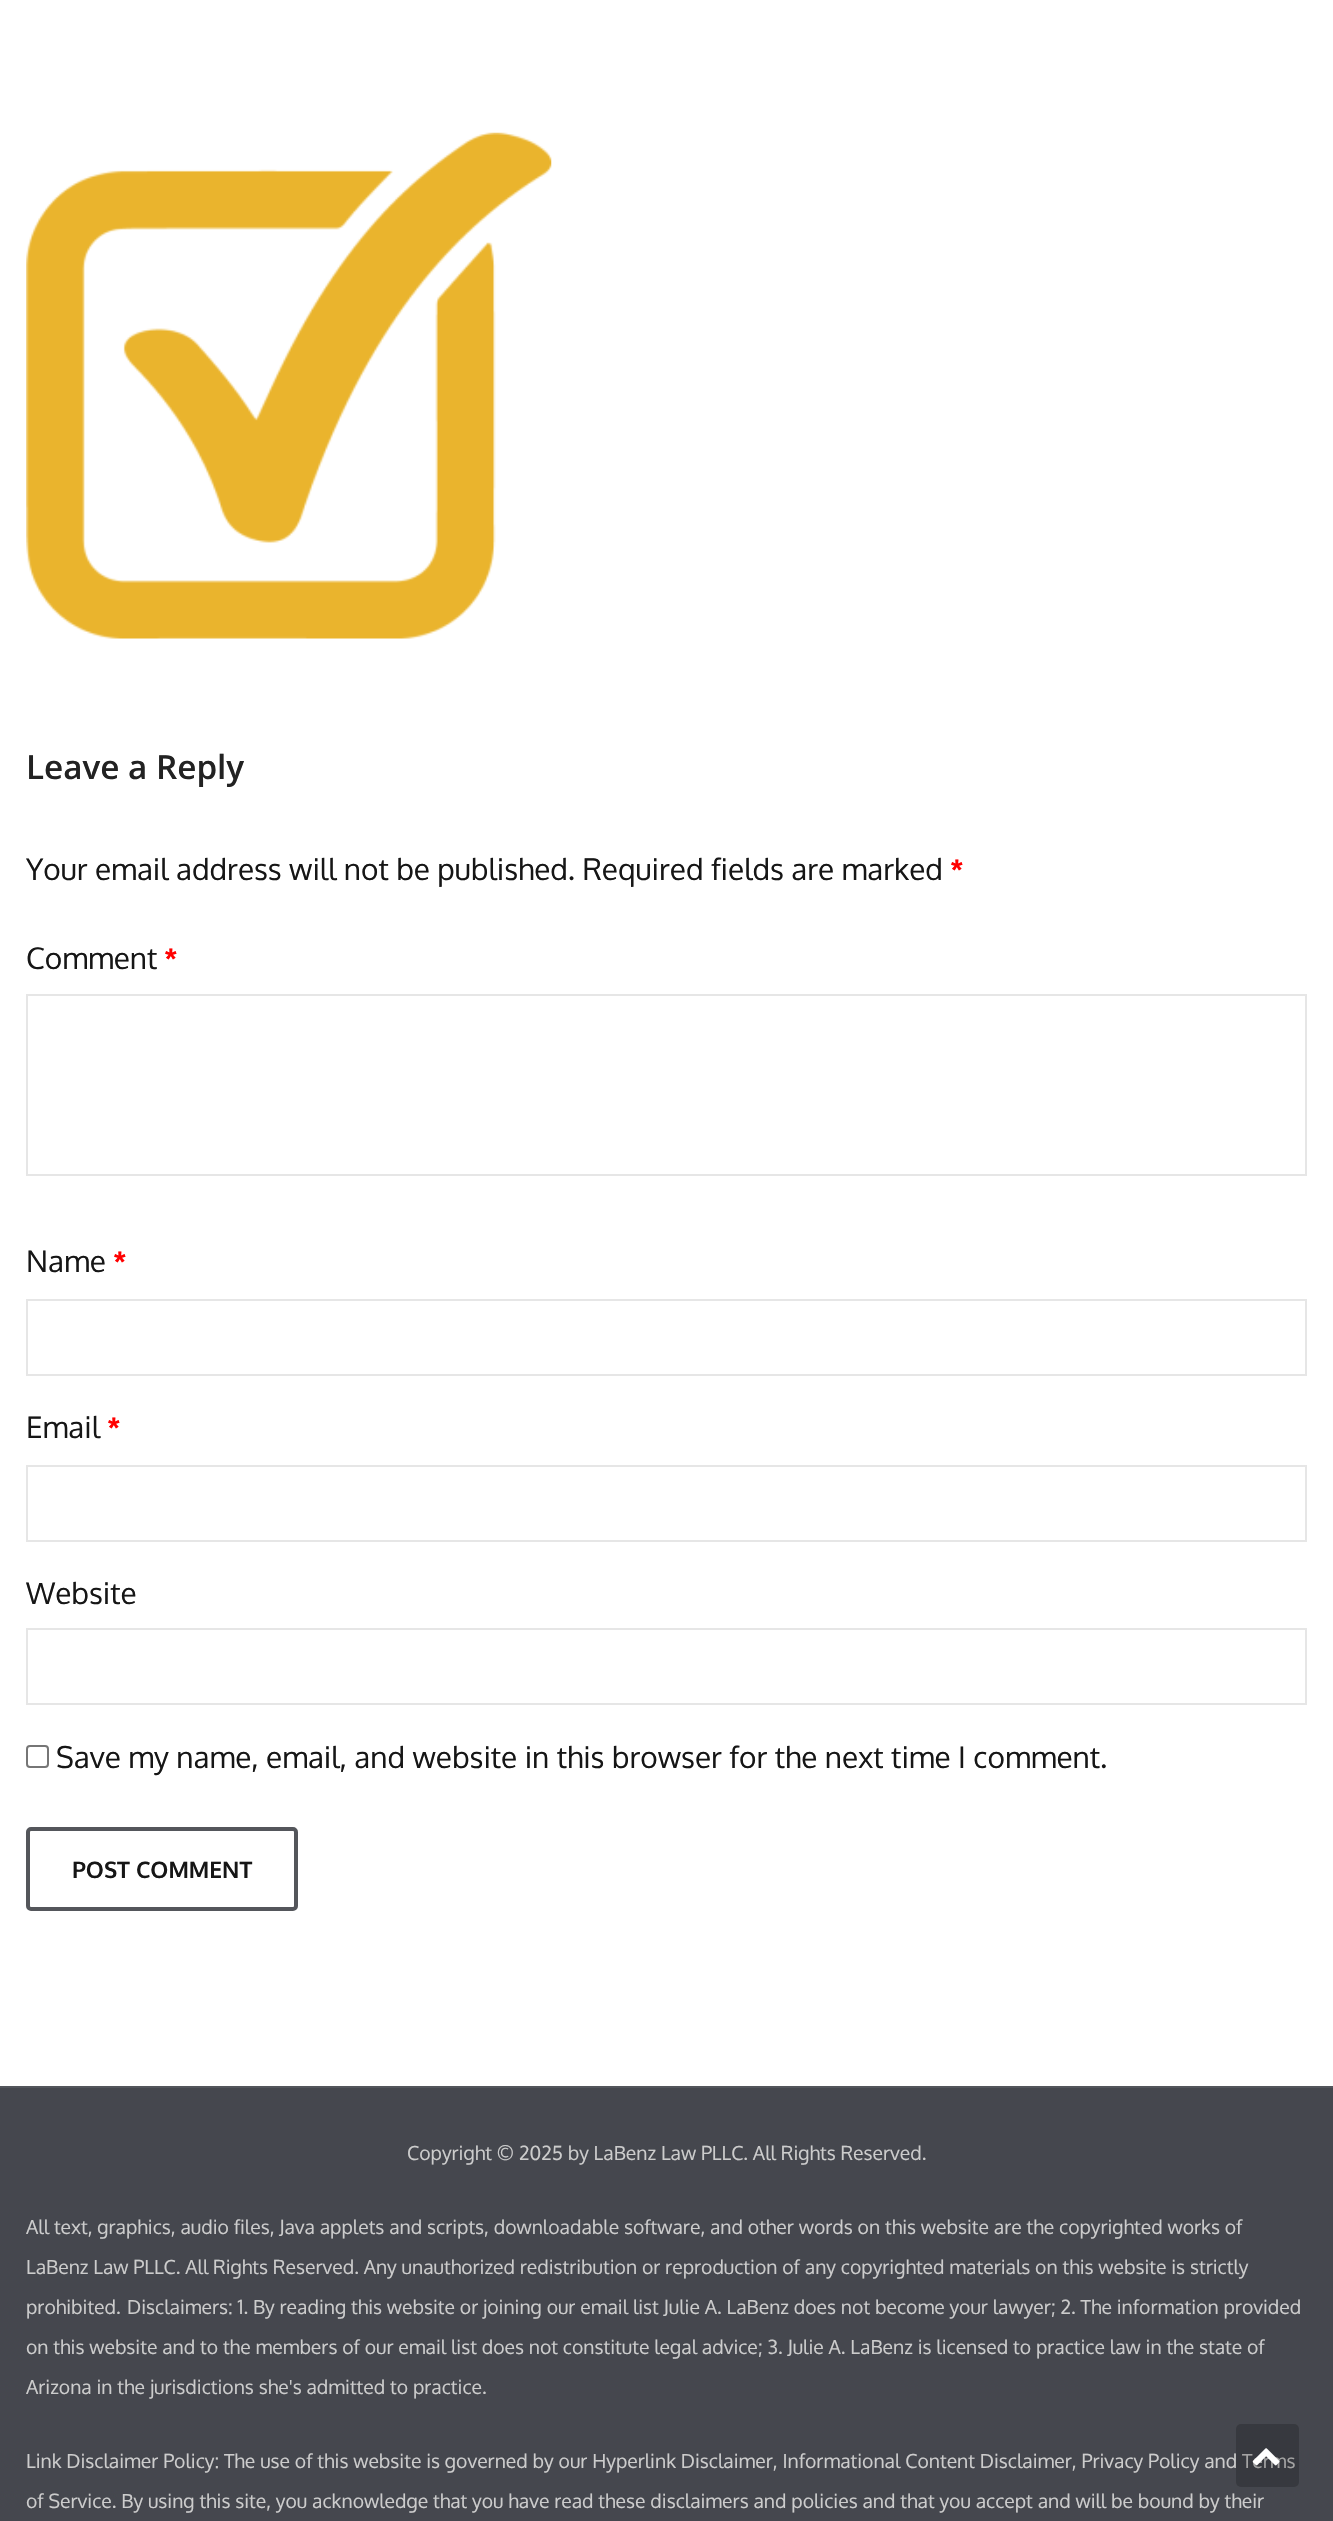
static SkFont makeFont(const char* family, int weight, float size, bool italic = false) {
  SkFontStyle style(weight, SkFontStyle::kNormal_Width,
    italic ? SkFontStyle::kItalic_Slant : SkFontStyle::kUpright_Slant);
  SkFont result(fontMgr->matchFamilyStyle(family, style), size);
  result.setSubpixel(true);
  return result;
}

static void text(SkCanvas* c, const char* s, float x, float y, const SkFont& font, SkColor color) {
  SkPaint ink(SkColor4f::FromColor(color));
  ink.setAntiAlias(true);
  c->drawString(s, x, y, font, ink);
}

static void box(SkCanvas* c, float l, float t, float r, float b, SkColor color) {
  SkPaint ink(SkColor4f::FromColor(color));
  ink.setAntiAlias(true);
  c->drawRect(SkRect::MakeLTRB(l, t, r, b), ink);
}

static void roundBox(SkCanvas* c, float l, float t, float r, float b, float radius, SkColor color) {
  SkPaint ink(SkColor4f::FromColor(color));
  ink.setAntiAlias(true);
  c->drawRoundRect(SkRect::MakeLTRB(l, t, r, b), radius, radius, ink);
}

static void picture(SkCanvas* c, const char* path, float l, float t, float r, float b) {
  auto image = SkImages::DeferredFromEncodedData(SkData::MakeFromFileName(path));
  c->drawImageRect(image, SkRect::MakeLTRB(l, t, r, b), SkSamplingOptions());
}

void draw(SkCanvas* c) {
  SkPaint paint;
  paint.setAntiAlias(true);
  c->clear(0xffffffff);
  picture(c, "img_01.png", 26, 132, 552, 639);
  SkFont face1 = makeFont("Open Sans", 600, 33.25f);
  text(c, "Leave a Reply", 26, 779, face1, 0xff222222);
  SkFont face2 = makeFont("Oxygen", 400, 29.75f);
  text(c, "Your email address will not be published. Required fields are marked", 26, 880, face2, 0xff161616);
  SkFont face3 = makeFont("Liberation Sans", 700, 29.75f);
  text(c, "*", 951, 880, face3, 0xffff0000);
  text(c, "Comment", 26, 969, face2, 0xff161616);
  text(c, "*", 165, 969, face3, 0xffff0000);
  paint.setStyle(SkPaint::kStroke_Style);
  paint.setStrokeWidth(2);
  paint.setColor(0xffe6e6e6);
  c->drawRect(SkRect::MakeLTRB(27, 995, 1306, 1175), paint);
  text(c, "Name", 26, 1272, face2, 0xff161616);
  text(c, "*", 114, 1272, face3, 0xffff0000);
  c->drawRect(SkRect::MakeLTRB(27, 1300, 1306, 1375), paint);
  text(c, "Email", 26, 1438, face2, 0xff161616);
  text(c, "*", 108, 1438, face3, 0xffff0000);
  c->drawRect(SkRect::MakeLTRB(27, 1466, 1306, 1541), paint);
  text(c, "Website", 26, 1604, face2, 0xff161616);
  c->drawRect(SkRect::MakeLTRB(27, 1629, 1306, 1704), paint);
  paint.setColor(0xff767676);
  c->drawRoundRect(SkRect::MakeLTRB(27, 1746, 48, 1767), 3, 3, paint);
  text(c, "Save my name, email, and website in this browser for the next time I comment.", 56, 1768, face2, 0xff161616);
  paint.setStrokeWidth(4);
  paint.setColor(0xff54565b);
  c->drawRoundRect(SkRect::MakeLTRB(28, 1829, 296, 1909), 3, 3, paint);
  SkFont face4 = makeFont("Oxygen", 700, 22.75f);
  text(c, "POST COMMENT", 72, 1878, face4, 0xff161616);
  box(c, 0, 2088, 1333, 2521, 0xff45474e);
  box(c, 0, 2086, 1333, 2088, 0xff53555b);
  SkFont face5 = makeFont("Oxygen", 400, 19.35f);
  text(c, "Copyright © 2025 by LaBenz Law PLLC. All Rights Reserved.", 407, 2160, face5, 0xffcccccc);
  text(c, "All text, graphics, audio files, Java applets and scripts, downloadable software, and other words on this website are the copyrighted works of", 26, 2234, face5, 0xffcccccc);
  text(c, "LaBenz Law PLLC. All Rights Reserved. Any unauthorized redistribution or reproduction of any copyrighted materials on this website is strictly", 26, 2274, face5, 0xffcccccc);
  text(c, "prohibited.", 26, 2314, face5, 0xffcccccc);
  text(c, "Disclaimers: 1. By reading this website or joining our email list Julie A. LaBenz does not become your lawyer; 2. The information provided", 127, 2314, face5, 0xffcccccc);
  text(c, "on this website and to the members of our email list does not constitute legal advice; 3. Julie A. LaBenz is licensed to practice law in the state of", 26, 2354, face5, 0xffcccccc);
  text(c, "Arizona in the jurisdictions she's admitted to practice.", 26, 2394, face5, 0xffcccccc);
  text(c, "Link Disclaimer Policy: The use of this website is governed by our Hyperlink Disclaimer, Informational Content Disclaimer, Privacy Policy and Terms", 26, 2468, face5, 0xffcccccc);
  text(c, "of Service. By using this site, you acknowledge that you have read these disclaimers and policies and that you accept and will be bound by their", 26, 2508, face5, 0xffcccccc);
  roundBox(c, 1236, 2424, 1299, 2487, 5, 0x33000000);
  picture(c, "img_02.png", 1252, 2448, 1280, 2466);
}
